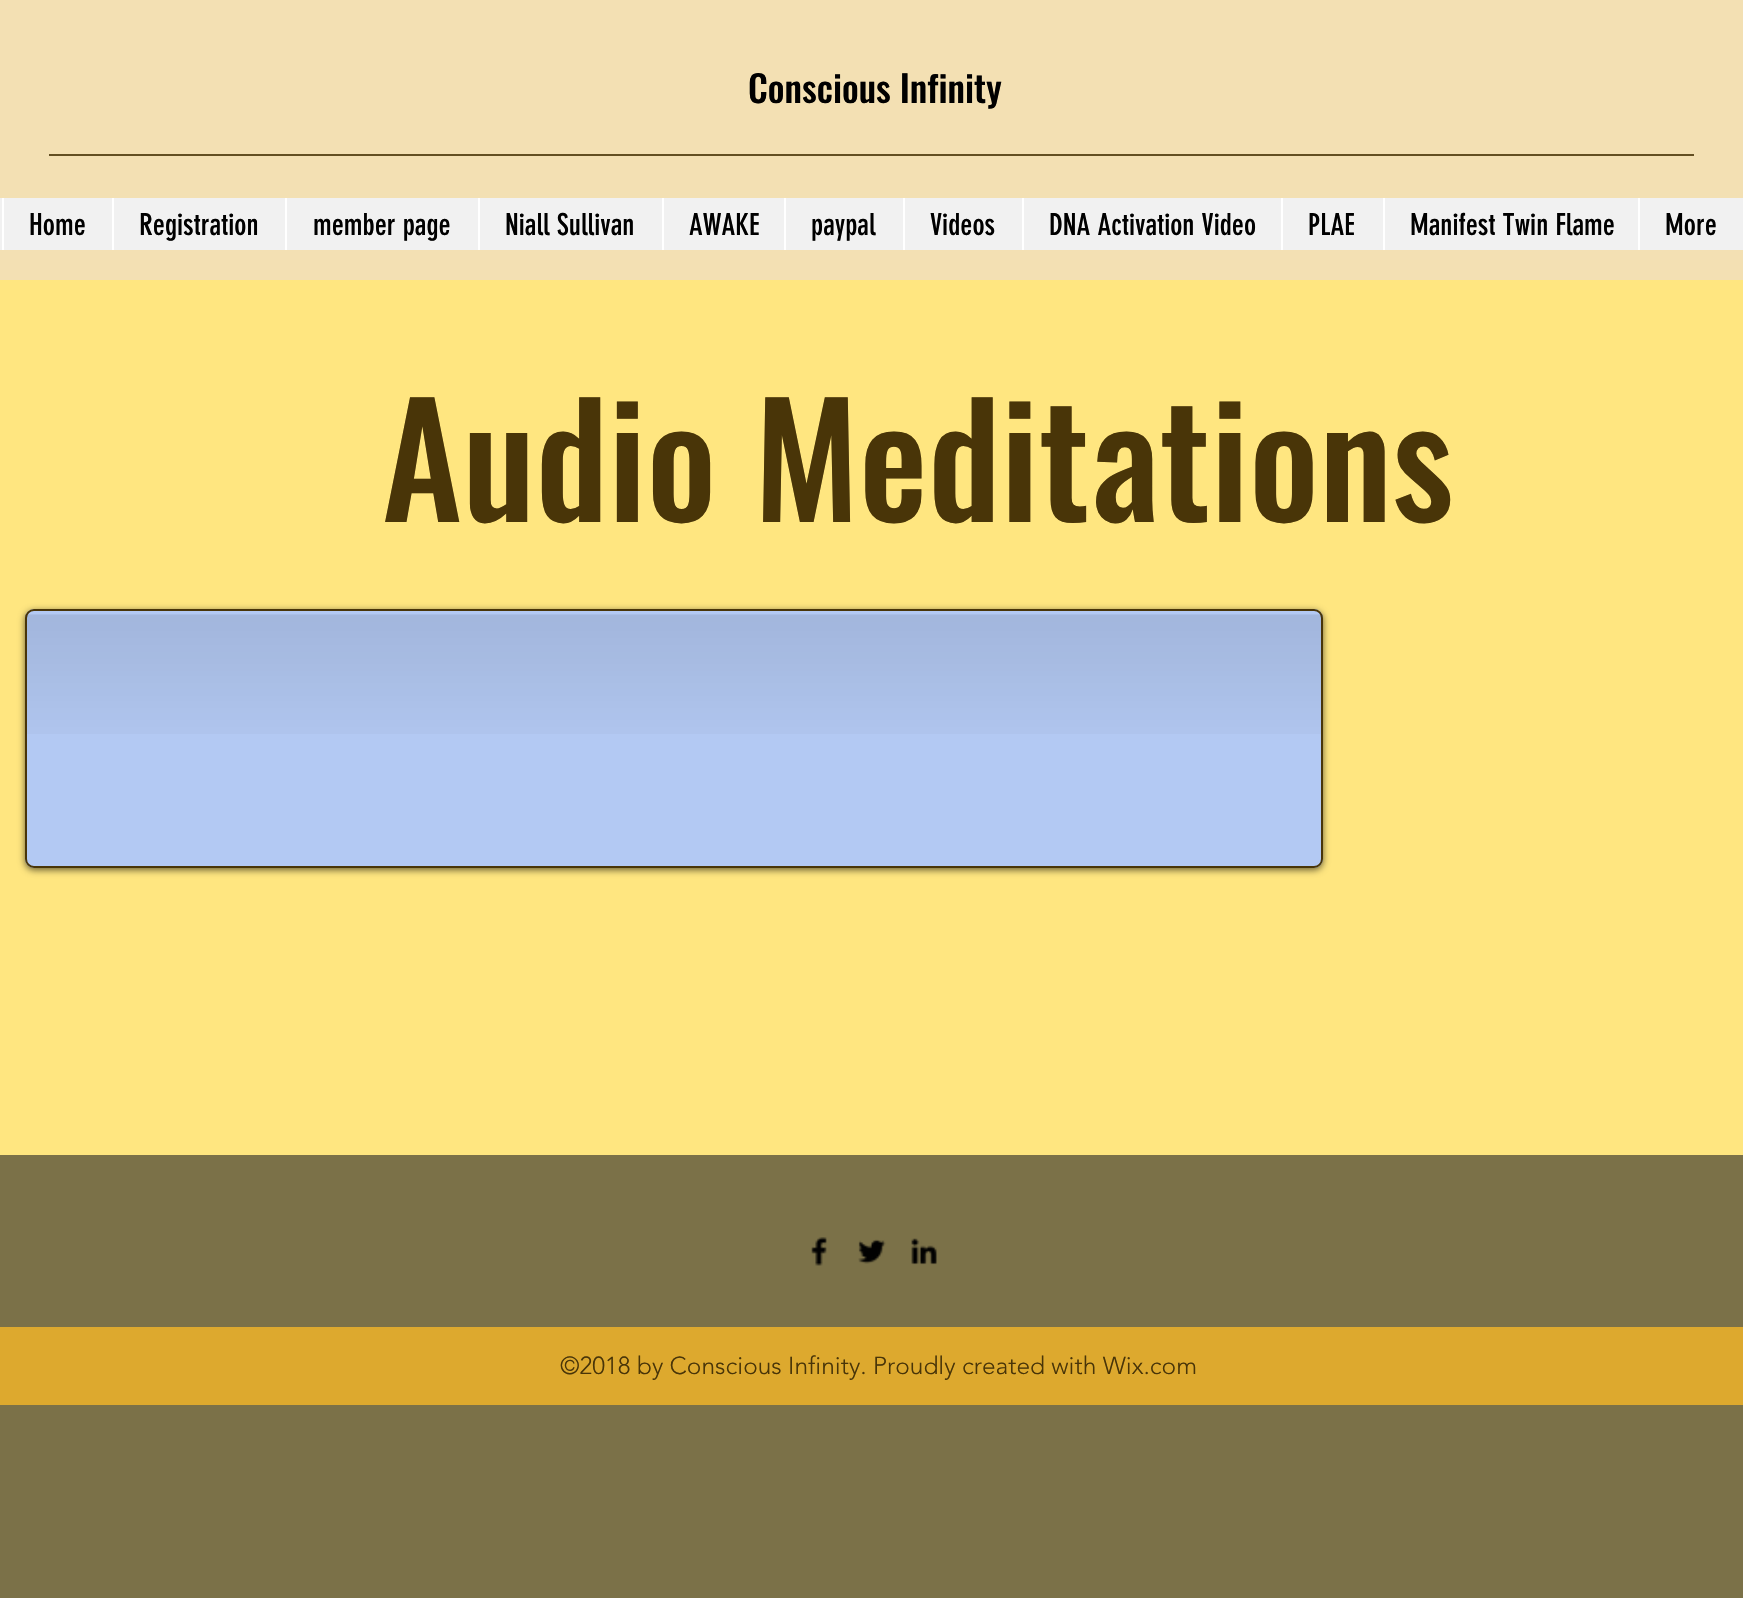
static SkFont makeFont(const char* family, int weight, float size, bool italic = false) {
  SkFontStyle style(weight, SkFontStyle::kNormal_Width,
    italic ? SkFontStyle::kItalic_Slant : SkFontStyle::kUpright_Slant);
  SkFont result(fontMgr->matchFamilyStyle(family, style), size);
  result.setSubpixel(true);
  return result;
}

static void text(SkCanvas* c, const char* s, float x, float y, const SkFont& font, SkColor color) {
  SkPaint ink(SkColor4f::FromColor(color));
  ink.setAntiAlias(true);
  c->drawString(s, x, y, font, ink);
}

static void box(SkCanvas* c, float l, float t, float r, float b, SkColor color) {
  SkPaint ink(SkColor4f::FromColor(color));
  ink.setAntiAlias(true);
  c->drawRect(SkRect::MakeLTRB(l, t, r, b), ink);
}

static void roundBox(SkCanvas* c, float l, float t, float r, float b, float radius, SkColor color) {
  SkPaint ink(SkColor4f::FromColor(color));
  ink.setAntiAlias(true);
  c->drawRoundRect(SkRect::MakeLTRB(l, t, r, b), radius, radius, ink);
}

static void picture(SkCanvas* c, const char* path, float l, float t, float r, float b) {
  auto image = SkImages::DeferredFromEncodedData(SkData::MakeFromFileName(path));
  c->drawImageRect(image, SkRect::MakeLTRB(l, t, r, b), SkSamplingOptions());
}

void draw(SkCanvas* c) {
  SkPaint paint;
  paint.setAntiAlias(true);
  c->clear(0xffffe680);
  box(c, 0, 0, 1743, 280, 0xfff3e0b3);
  SkFont face1 = makeFont("Oswald", 500, 36.75f);
  text(c, "Conscious Infinity", 748, 103, face1, 0xff000000);
  box(c, 49, 154, 1694, 156, 0xff634f22);
  box(c, 0, 198, 1743, 250, 0xfff1f1f1);
  box(c, 2, 198, 4, 250, 0xffffffff);
  SkFont face2 = makeFont("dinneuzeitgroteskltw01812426", 400, 29.75f);
  text(c, "Home", 29, 235, face2, 0xff000000);
  box(c, 112, 198, 114, 250, 0xffffffff);
  text(c, "Registration", 139, 235, face2, 0xff000000);
  box(c, 285, 198, 287, 250, 0xffffffff);
  text(c, "member page", 313, 235, face2, 0xff000000);
  box(c, 478, 198, 480, 250, 0xffffffff);
  text(c, "Niall Sullivan", 505, 235, face2, 0xff000000);
  box(c, 662, 198, 664, 250, 0xffffffff);
  text(c, "AWAKE", 689, 235, face2, 0xff000000);
  box(c, 784, 198, 786, 250, 0xffffffff);
  text(c, "paypal", 811, 235, face2, 0xff000000);
  box(c, 903, 198, 905, 250, 0xffffffff);
  text(c, "Videos", 930, 235, face2, 0xff000000);
  box(c, 1022, 198, 1024, 250, 0xffffffff);
  text(c, "DNA Activation Video", 1049, 235, face2, 0xff000000);
  box(c, 1281, 198, 1283, 250, 0xffffffff);
  text(c, "PLAE", 1308, 235, face2, 0xff000000);
  box(c, 1383, 198, 1385, 250, 0xffffffff);
  text(c, "Manifest Twin Flame", 1410, 235, face2, 0xff000000);
  box(c, 1638, 198, 1640, 250, 0xffffffff);
  text(c, "More", 1665, 235, face2, 0xff000000);
  SkFont face3 = makeFont("Oswald", 500, 154);
  text(c, "Audio Meditations", 382, 522, face3, 0xff493508);
  paint.setColor(0x99000000);
  paint.setMaskFilter(SkMaskFilter::MakeBlur(kNormal_SkBlurStyle, 3.5f));
  c->drawRoundRect(SkRect::MakeLTRB(25, 611, 1323, 870), 9, 9, paint);
  paint.setMaskFilter(nullptr);
  roundBox(c, 25, 609, 1323, 868, 9, 0xffb3c9f3);
  picture(c, "img_01.png", 25, 614, 1323, 734);
  paint.setStyle(SkPaint::kStroke_Style);
  paint.setStrokeWidth(2);
  paint.setColor(0xff493508);
  c->drawRoundRect(SkRect::MakeLTRB(26, 610, 1322, 867), 8, 8, paint);
  box(c, 0, 1155, 1743, 1598, 0xff7b7148);
  picture(c, "img_02.png", 811, 1237, 827, 1266);
  picture(c, "img_03.png", 858, 1239, 886, 1264);
  picture(c, "img_04.png", 911, 1238, 937, 1265);
  box(c, 0, 1327, 1743, 1405, 0xffdda92e);
  SkFont face4 = makeFont("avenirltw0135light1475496", 300, 24.5f);
  text(c, "©2018 by Conscious Infinity. Proudly created with Wix.com", 560, 1374, face4, 0xff493508);
}
